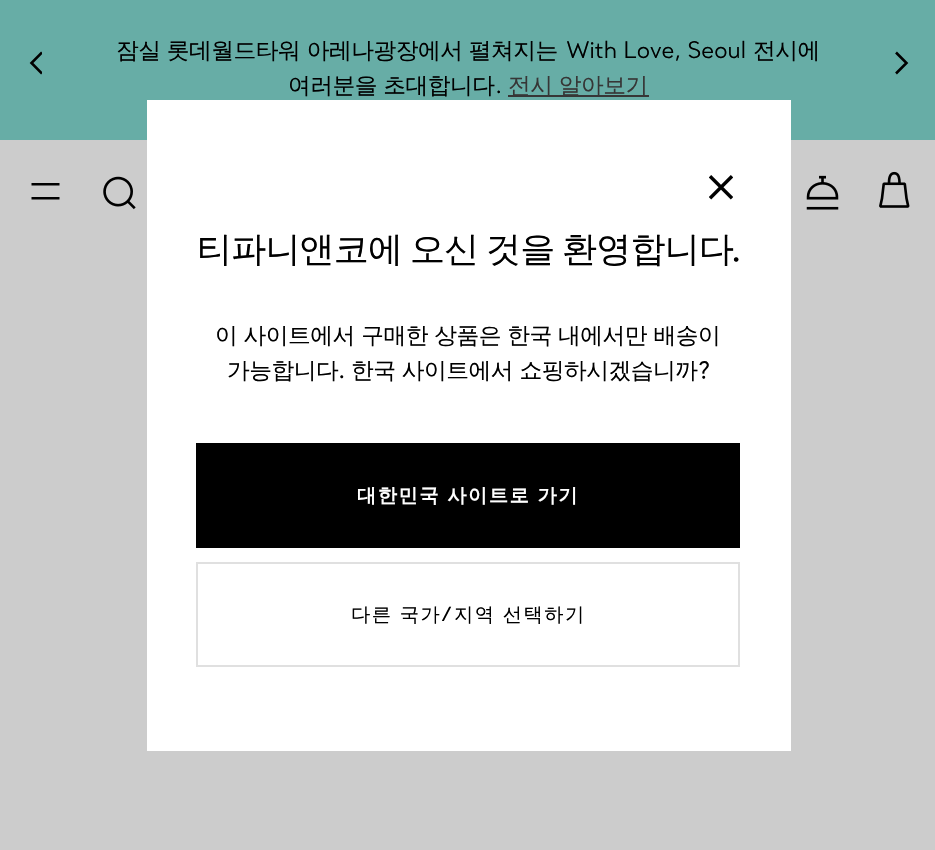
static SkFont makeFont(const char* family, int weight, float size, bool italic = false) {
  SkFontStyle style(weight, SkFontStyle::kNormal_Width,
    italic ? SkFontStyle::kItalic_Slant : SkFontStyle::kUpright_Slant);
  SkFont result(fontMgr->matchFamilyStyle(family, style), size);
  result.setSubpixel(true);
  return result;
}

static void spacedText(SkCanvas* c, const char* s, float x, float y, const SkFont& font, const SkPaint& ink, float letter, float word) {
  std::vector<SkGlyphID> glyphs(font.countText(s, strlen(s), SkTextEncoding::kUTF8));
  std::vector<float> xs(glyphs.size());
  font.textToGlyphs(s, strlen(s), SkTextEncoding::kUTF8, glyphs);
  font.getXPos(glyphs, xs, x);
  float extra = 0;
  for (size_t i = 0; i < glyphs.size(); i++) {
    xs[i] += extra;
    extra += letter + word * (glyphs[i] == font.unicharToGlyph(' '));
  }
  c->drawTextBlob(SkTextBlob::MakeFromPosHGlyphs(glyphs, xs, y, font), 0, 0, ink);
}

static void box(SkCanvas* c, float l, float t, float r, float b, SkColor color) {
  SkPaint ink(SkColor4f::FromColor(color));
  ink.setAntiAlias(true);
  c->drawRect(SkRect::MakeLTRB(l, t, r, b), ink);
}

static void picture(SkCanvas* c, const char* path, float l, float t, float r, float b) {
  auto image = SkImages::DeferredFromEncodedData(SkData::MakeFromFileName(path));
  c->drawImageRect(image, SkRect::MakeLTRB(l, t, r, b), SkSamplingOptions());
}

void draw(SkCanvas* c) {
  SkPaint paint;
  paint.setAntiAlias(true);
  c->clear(0xffcccccc);
  box(c, 0, 0, 935, 140, 0xff67ada6);
  c->save();
  c->clipRect(SkRect::MakeLTRB(28, 51, 42, 75));
  paint.setStyle(SkPaint::kStroke_Style);
  paint.setStrokeWidth(2.6f);
  paint.setColor(0xff000000);
  c->drawPath(SkPathBuilder().moveTo(42, 73.5f).lineTo(31.5f, 63).lineTo(42, 52.5f).detach(), paint);
  c->restore();
  SkFont face1 = makeFont("WenQuanYi Zen Hei", 500, 22.75f);
  paint.setStyle(SkPaint::kFill_Style);
  spacedText(c, "잠실 롯데월드타워 아레나광장에서 펼쳐지는", 116, 58, face1, paint, -0.5f, 0);
  SkFont face2 = makeFont("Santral", 400, 22.75f);
  spacedText(c, "With Love, Seoul", 566, 58, face2, paint, -0.5f, 0);
  spacedText(c, "전시에", 753, 58, face1, paint, -0.5f, 0);
  spacedText(c, "여러분을 초대합니다", 288, 93, face1, paint, -0.5f, 0);
  spacedText(c, ".", 495, 93, face2, paint, -0.5f, 0);
  box(c, 508, 95, 649, 97, 0xff363636);
  paint.setColor(0xff363636);
  spacedText(c, "전시 알아보기", 508, 93, face1, paint, -0.5f, 0);
  paint.setStyle(SkPaint::kStroke_Style);
  paint.setColor(0xff000000);
  c->drawPath(SkPathBuilder().moveTo(896, 52.5f).lineTo(906.5f, 63).lineTo(896, 73.5f).detach(), paint);
  paint.setStyle(SkPaint::kFill_Style);
  c->drawPath(SkPathBuilder(SkPathFillType::kEvenOdd).moveTo(31.5f, 185.5f).lineTo(59.5f, 185.5f).lineTo(59.5f, 183).lineTo(31.5f, 183).close().moveTo(31.5f, 199.5f).lineTo(59.5f, 199.5f).lineTo(59.5f, 197).lineTo(31.5f, 197).close().detach(), paint);
  picture(c, "img_01.png", 103, 176, 136, 210);
  picture(c, "img_02.png", 806, 175, 839, 210);
  picture(c, "img_03.png", 879, 171, 910, 208);
  box(c, 147, 100, 791, 751, 0xffffffff);
  picture(c, "img_04.png", 709, 175, 733, 200);
  SkFont face3 = makeFont("WenQuanYi Zen Hei", 500, 35);
  spacedText(c, "티파니앤코에 오신 것을 환영합니다", 197, 261, face3, paint, -0.8f, -2);
  SkFont face4 = makeFont("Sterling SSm", 400, 35);
  spacedText(c, ".", 732, 261, face4, paint, -0.8f, 0);
  spacedText(c, "이 사이트에서 구매한 상품은 한국 내에서만 배송이", 215, 343, face1, paint, -0.5f, 0);
  spacedText(c, "가능합니다", 227, 378, face1, paint, -0.5f, 0);
  SkFont face5 = makeFont("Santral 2", 400, 22.75f);
  spacedText(c, ".", 338, 378, face5, paint, -0.5f, 0);
  spacedText(c, "한국 사이트에서 쇼핑하시겠습니까", 351, 378, face1, paint, -0.5f, 0);
  spacedText(c, "?", 698, 378, face5, paint, -0.5f, 0);
  box(c, 196, 443, 740, 548, 0xff000000);
  SkFont face6 = makeFont("WenQuanYi Zen Hei", 700, 19.25f);
  paint.setColor(0xffffffff);
  spacedText(c, "대한민국 사이트로 가기", 357, 502, face6, paint, 1.5f, 0);
  paint.setStyle(SkPaint::kStroke_Style);
  paint.setStrokeWidth(2);
  paint.setColor(0xffe0e0e0);
  c->drawRect(SkRect::MakeLTRB(197, 563, 739, 666), paint);
  SkFont face7 = makeFont("WenQuanYi Zen Hei", 500, 19.25f);
  paint.setStyle(SkPaint::kFill_Style);
  paint.setColor(0xff000000);
  spacedText(c, "다른 국가", 351, 621, face7, paint, 1.5f, 0);
  SkFont face8 = makeFont("Santral", 500, 19.25f);
  spacedText(c, "/", 441, 621, face8, paint, 1.5f, 0);
  spacedText(c, "지역 선택하기", 454, 621, face7, paint, 1.5f, 0);
}
